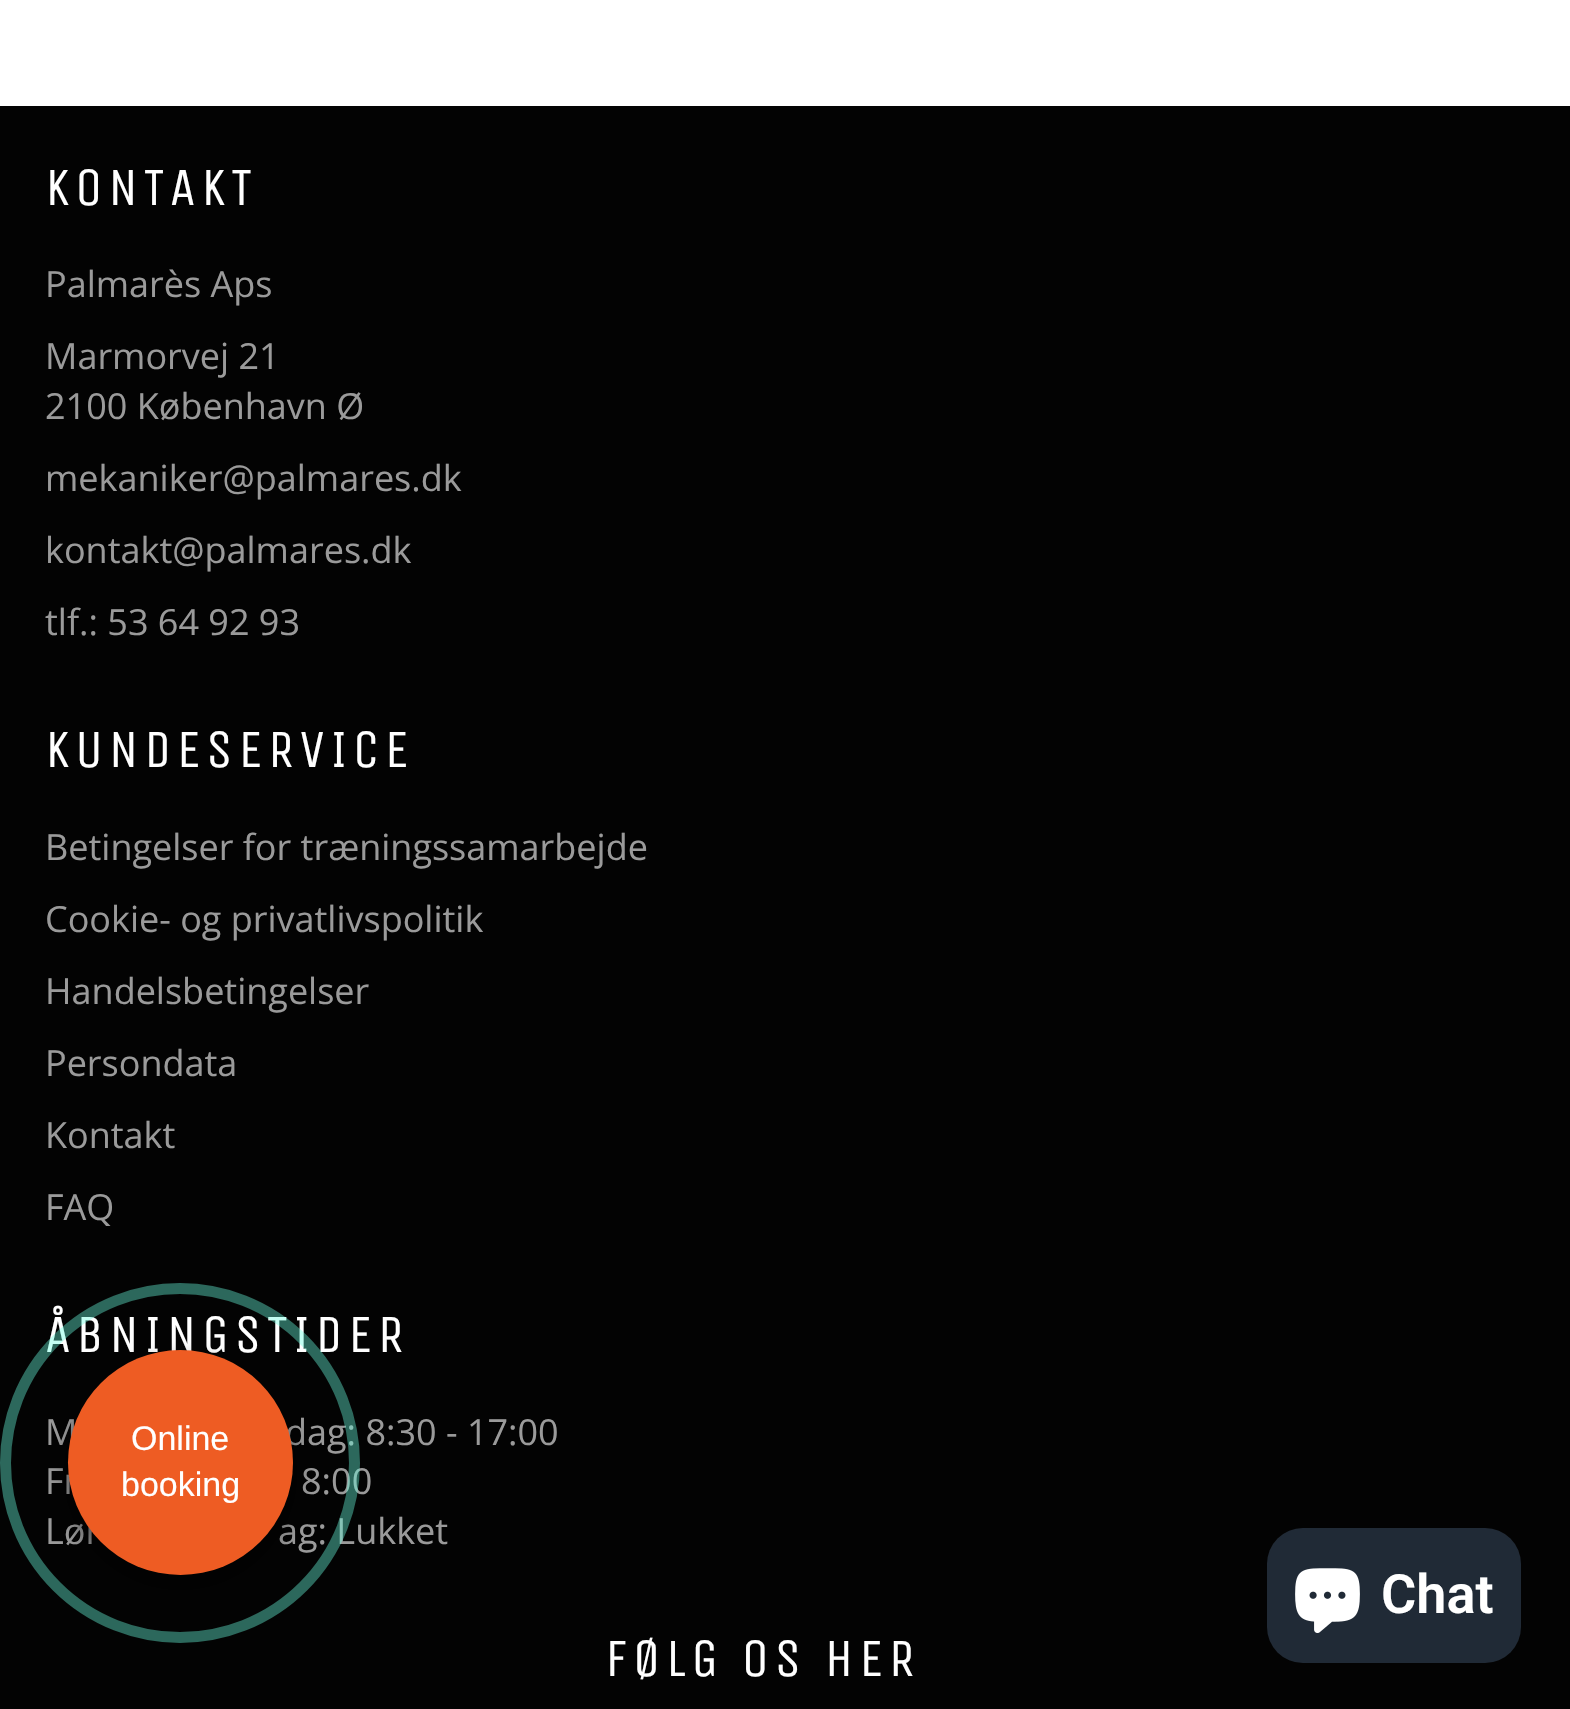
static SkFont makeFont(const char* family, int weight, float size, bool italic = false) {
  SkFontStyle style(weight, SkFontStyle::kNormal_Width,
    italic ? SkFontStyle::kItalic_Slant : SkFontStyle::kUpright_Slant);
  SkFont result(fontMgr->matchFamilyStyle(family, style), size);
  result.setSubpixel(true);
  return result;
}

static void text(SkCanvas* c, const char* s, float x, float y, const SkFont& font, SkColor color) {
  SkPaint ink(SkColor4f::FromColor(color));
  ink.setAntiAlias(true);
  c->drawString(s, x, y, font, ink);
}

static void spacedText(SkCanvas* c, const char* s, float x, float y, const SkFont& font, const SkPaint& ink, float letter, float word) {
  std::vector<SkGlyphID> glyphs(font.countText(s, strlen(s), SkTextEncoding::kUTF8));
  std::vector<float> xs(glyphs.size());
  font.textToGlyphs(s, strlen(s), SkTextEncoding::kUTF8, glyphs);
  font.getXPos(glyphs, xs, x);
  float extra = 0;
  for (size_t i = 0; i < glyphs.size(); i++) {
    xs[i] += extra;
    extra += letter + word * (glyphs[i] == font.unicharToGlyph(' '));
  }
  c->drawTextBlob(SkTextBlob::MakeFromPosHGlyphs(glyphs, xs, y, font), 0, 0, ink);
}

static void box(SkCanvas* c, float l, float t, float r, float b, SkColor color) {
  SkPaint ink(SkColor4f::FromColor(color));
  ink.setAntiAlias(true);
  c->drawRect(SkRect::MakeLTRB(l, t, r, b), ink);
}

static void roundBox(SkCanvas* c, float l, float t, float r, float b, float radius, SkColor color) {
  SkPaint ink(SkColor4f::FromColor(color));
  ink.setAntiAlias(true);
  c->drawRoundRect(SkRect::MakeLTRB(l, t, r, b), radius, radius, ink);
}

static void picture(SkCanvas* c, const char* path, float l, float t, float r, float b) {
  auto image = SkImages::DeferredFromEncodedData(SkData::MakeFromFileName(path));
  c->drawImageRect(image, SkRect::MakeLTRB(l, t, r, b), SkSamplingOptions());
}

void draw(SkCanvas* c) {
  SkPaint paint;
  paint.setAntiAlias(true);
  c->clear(0xffffffff);
  box(c, 0, 106, 1570, 1709, 0xff030303);
  SkFont face1 = makeFont("Unica One", 400, 54);
  paint.setColor(0xffffffff);
  spacedText(c, "KONTAKT", 45, 205, face1, paint, 5.4f, 0);
  SkFont face2 = makeFont("Open Sans", 400, 36);
  text(c, "Palmarès Aps", 45, 297, face2, 0xff9a9a9a);
  text(c, "Marmorvej 21", 45, 369, face2, 0xff9a9a9a);
  text(c, "2100 København Ø", 45, 419, face2, 0xff9a9a9a);
  text(c, "mekaniker@palmares.dk", 45, 491, face2, 0xff9a9a9a);
  text(c, "kontakt@palmares.dk", 45, 563, face2, 0xff9a9a9a);
  text(c, "tlf.: 53 64 92 93", 45, 635, face2, 0xff9a9a9a);
  spacedText(c, "KUNDESERVICE", 45, 767, face1, paint, 5.4f, 0);
  text(c, "Betingelser for træningssamarbejde", 45, 860, face2, 0xff9a9a9a);
  text(c, "Cookie- og privatlivspolitik", 45, 932, face2, 0xff9a9a9a);
  text(c, "Handelsbetingelser", 45, 1004, face2, 0xff9a9a9a);
  text(c, "Persondata", 45, 1076, face2, 0xff9a9a9a);
  text(c, "Kontakt", 45, 1148, face2, 0xff9a9a9a);
  text(c, "FAQ", 45, 1220, face2, 0xff9a9a9a);
  spacedText(c, "ÅBNINGSTIDER", 45, 1352, face1, paint, 5.4f, 0);
  text(c, "M", 45, 1445, face2, 0xff9a9a9a);
  text(c, "dag: 8:30 - 17:00", 285, 1445, face2, 0xff9a9a9a);
  text(c, "Fr", 45, 1494, face2, 0xff9a9a9a);
  text(c, "8:00", 301, 1494, face2, 0xff9a9a9a);
  text(c, "Lør", 45, 1544, face2, 0xff9a9a9a);
  text(c, "ag: Lukket", 278, 1544, face2, 0xff9a9a9a);
  spacedText(c, "FØLG OS HER", 605, 1676, face1, paint, 5.4f, 0);
  paint.setColor(0x80000000);
  paint.setMaskFilter(SkMaskFilter::MakeBlur(kNormal_SkBlurStyle, 11));
  c->drawRoundRect(SkRect::MakeLTRB(68, 1361, 293, 1586), 112.5f, 112.5f, paint);
  paint.setMaskFilter(nullptr);
  paint.setColor(0xffee5c23);
  c->drawCircle(180.5f, 1462.5f, 112.5f, paint);
  SkFont face3 = makeFont("Liberation Sans", 400, 34);
  text(c, "Online", 131, 1450, face3, 0xffffffff);
  text(c, "booking", 121, 1496, face3, 0xffffffff);
  paint.setStyle(SkPaint::kStroke_Style);
  paint.setStrokeWidth(11);
  paint.setColor(0x666affe0);
  c->drawCircle(180, 1463, 174.5f, paint);
  roundBox(c, 1267, 1528, 1521, 1663, 36, 0xff202a36);
  picture(c, "img_01.png", 1295, 1568, 1360, 1633);
  SkFont face4 = makeFont("Roboto", 600, 54);
  text(c, "Chat", 1381, 1613, face4, 0xffffffff);
}
